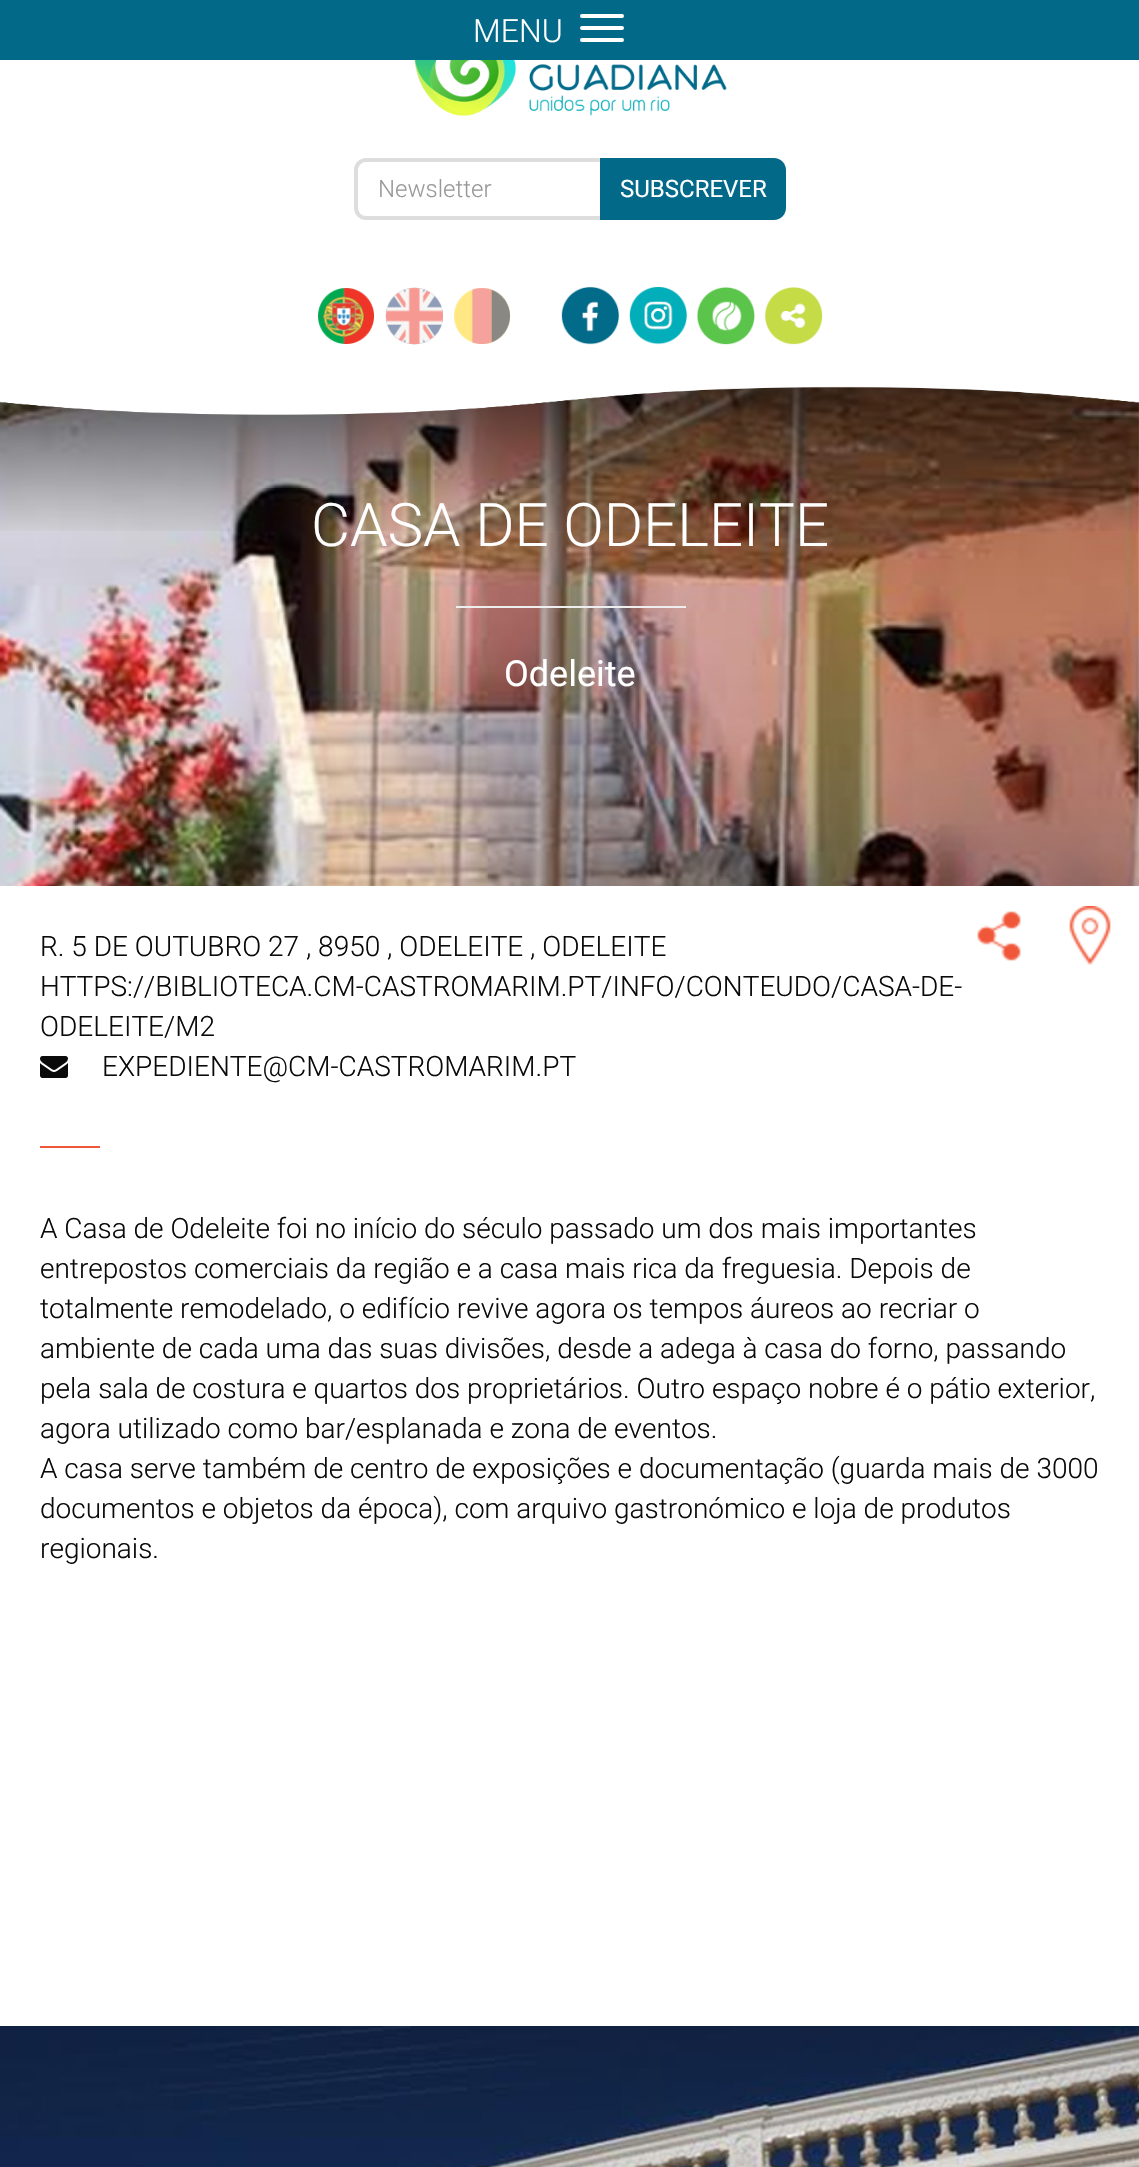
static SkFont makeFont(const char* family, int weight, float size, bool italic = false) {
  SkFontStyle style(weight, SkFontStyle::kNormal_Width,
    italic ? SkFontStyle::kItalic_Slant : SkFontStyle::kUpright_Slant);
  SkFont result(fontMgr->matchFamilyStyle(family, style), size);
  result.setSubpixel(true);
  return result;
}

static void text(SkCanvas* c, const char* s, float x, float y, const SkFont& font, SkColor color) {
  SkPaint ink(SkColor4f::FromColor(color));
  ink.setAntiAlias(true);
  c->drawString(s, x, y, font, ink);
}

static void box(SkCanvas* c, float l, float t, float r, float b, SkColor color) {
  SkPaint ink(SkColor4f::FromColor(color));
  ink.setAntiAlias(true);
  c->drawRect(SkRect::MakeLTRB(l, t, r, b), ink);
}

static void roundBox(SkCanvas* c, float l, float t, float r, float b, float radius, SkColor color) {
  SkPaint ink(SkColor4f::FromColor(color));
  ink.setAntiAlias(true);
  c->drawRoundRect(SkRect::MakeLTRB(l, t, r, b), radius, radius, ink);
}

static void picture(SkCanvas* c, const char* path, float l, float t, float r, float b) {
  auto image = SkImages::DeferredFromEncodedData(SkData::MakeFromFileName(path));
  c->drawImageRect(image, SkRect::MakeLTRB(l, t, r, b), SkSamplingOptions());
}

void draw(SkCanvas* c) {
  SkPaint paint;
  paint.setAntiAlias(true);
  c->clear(0xffffffff);
  box(c, 0, 0, 1139, 60, 0xff036989);
  SkFont face1 = makeFont("Roboto", 300, 32);
  text(c, "MENU", 473, 42, face1, 0xffffffff);
  roundBox(c, 580, 14, 624, 18, 2, 0xffffffff);
  roundBox(c, 580, 26, 624, 30, 2, 0xffffffff);
  roundBox(c, 580, 38, 624, 42, 2, 0xffffffff);
  paint.setStyle(SkPaint::kStroke_Style);
  paint.setStrokeWidth(4);
  paint.setColor(0xffdddddd);
  c->drawPath(SkPathBuilder().moveTo(366, 160).lineTo(598, 160).cubicTo(601.5f, 160, 604, 162.5f, 604, 166).lineTo(604, 212).cubicTo(604, 215.5f, 601.5f, 218, 598, 218).lineTo(366, 218).cubicTo(360.5f, 218, 356, 213.5f, 356, 208).lineTo(356, 170).cubicTo(356, 164.5f, 360.5f, 160, 366, 160).close().detach(), paint);
  SkFont face2 = makeFont("Roboto", 300, 24);
  text(c, "Newsletter", 378, 197, face2, 0xff999999);
  paint.setStyle(SkPaint::kFill_Style);
  paint.setColor(0xff036989);
  c->drawPath(SkPathBuilder().moveTo(600, 158).lineTo(774, 158).cubicTo(780.5f, 158, 786, 163.5f, 786, 170).lineTo(786, 208).cubicTo(786, 214.5f, 780.5f, 220, 774, 220).lineTo(600, 220).close().detach(), paint);
  SkFont face3 = makeFont("Roboto", 400, 24);
  text(c, "SUBSCREVER", 620, 197, face3, 0xffffffff);
  picture(c, "img_01.png", 414, 60, 727, 116);
  picture(c, "img_02.png", 318, 288, 374, 344);
  picture(c, "img_03.png", 385, 287, 443, 345);
  picture(c, "img_04.png", 454, 288, 510, 344);
  picture(c, "img_05.png", 561, 287, 620, 345);
  picture(c, "img_06.png", 629, 287, 688, 345);
  picture(c, "img_07.png", 697, 287, 755, 345);
  picture(c, "img_08.png", 765, 287, 823, 345);
  picture(c, "img_10.png", 0, 386, 1139, 886);
  {
    const SkColor colors[] = {0x99000000, 0x00000000, 0x00000000};
    const float stops[] = {0, 0.3f, 1};
    const SkPoint ends[] = {{570, 386}, {570, 886}};
    paint.setShader(SkGradientShader::MakeLinear(ends, colors, stops, 3, SkTileMode::kClamp));
    paint.setAlpha(255);
  }
  c->drawRect(SkRect::MakeLTRB(0, 386, 1139, 531), paint);
  picture(c, "img_09.png", 0, 386, 1139, 415);
  SkFont face4 = makeFont("Roboto", 300, 60);
  text(c, "CASA DE ODELEITE", 311, 546, face4, 0xffffffff);
  box(c, 456, 606, 686, 608, 0xffeeeeee);
  SkFont face5 = makeFont("Roboto", 400, 36);
  text(c, "Odeleite", 504, 686, face5, 0xffffffff);
  picture(c, "img_11.png", 977, 911, 1021, 961);
  picture(c, "img_12.png", 1069, 906, 1111, 965);
  SkFont face6 = makeFont("Roboto", 300, 28);
  text(c, "R. 5 DE OUTUBRO 27 , 8950 , ODELEITE , ODELEITE", 40, 956, face6, 0xff0a0a0a);
  text(c, "HTTPS://BIBLIOTECA.CM-CASTROMARIM.PT/INFO/CONTEUDO/CASA-DE-", 40, 996, face6, 0xff0a0a0a);
  text(c, "ODELEITE/M2", 40, 1036, face6, 0xff0a0a0a);
  picture(c, "img_13.png", 40, 1056, 68, 1078);
  text(c, "EXPEDIENTE@CM-CASTROMARIM.PT", 102, 1076, face6, 0xff0a0a0a);
  box(c, 40, 1146, 100, 1148, 0xfff05638);
  text(c, "A Casa de Odeleite foi no início do século passado um dos mais importantes", 40, 1238, face6, 0xff0a0a0a);
  text(c, "entrepostos comerciais da região e a casa mais rica da freguesia. Depois de", 40, 1278, face6, 0xff0a0a0a);
  text(c, "totalmente remodelado, o edifício revive agora os tempos áureos ao recriar o", 40, 1318, face6, 0xff0a0a0a);
  text(c, "ambiente de cada uma das suas divisões, desde a adega à casa do forno, passando", 40, 1358, face6, 0xff0a0a0a);
  text(c, "pela sala de costura e quartos dos proprietários. Outro espaço nobre é o pátio exterior,", 40, 1398, face6, 0xff0a0a0a);
  text(c, "agora utilizado como bar/esplanada e zona de eventos.", 40, 1438, face6, 0xff0a0a0a);
  text(c, "A casa serve também de centro de exposições e documentação (guarda mais de 3000", 40, 1478, face6, 0xff0a0a0a);
  text(c, "documentos e objetos da época), com arquivo gastronómico e loja de produtos", 40, 1518, face6, 0xff0a0a0a);
  text(c, "regionais.", 40, 1558, face6, 0xff0a0a0a);
  picture(c, "img_14.png", 0, 2026, 1139, 2167);
}
